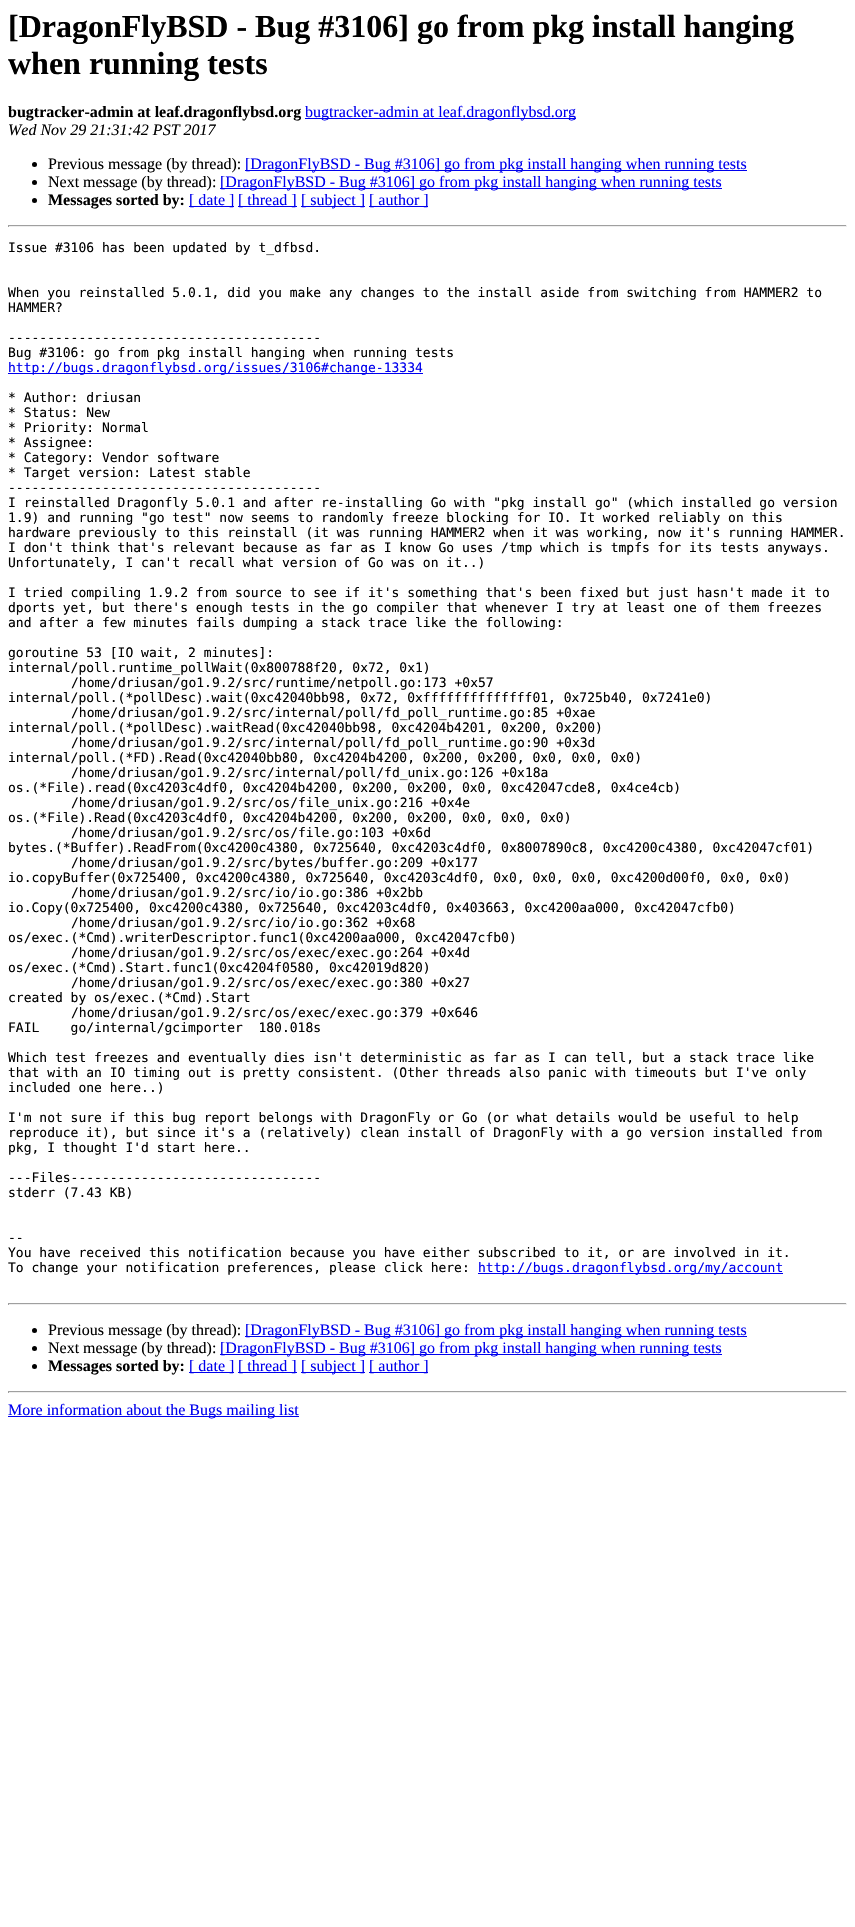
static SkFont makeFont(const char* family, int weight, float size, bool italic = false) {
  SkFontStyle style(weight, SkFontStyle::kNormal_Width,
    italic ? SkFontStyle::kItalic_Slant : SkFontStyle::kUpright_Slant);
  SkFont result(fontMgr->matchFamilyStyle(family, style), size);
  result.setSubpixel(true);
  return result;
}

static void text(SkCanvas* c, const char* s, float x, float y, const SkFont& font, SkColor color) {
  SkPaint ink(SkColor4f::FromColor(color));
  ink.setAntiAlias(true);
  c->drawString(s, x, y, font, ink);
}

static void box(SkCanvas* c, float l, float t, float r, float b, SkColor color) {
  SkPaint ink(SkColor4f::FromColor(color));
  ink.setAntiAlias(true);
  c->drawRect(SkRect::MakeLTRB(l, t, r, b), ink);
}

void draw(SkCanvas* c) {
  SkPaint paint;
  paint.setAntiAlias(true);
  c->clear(0xffffffff);
  SkFont face1 = makeFont("Liberation Serif", 700, 32);
  text(c, "[DragonFlyBSD - Bug #3106] go from pkg install hanging", 8, 37, face1, 0xff000000);
  text(c, "when running tests", 8, 74, face1, 0xff000000);
  SkFont face2 = makeFont("Liberation Serif", 700, 16);
  text(c, "bugtracker-admin at leaf.dragonflybsd.org", 8, 117, face2, 0xff000000);
  box(c, 305, 118, 576, 119, 0xff0000ee);
  SkFont face3 = makeFont("Liberation Serif", 400, 16);
  text(c, "bugtracker-admin at leaf.dragonflybsd.org", 305, 117, face3, 0xff0000ee);
  SkFont face4 = makeFont("Liberation Serif", 400, 16, true);
  text(c, "Wed Nov 29 21:31:42 PST 2017", 8, 135, face4, 0xff000000);
  paint.setColor(0xff000000);
  c->drawCircle(34.5f, 164.5f, 2.5f, paint);
  text(c, "Previous message (by thread):", 48, 169, face3, 0xff000000);
  box(c, 245, 170, 747, 171, 0xff0000ee);
  text(c, "[DragonFlyBSD - Bug #3106] go from pkg install hanging when running tests", 245, 169, face3, 0xff0000ee);
  c->drawCircle(34.5f, 182.5f, 2.5f, paint);
  text(c, "Next message (by thread):", 48, 187, face3, 0xff000000);
  box(c, 220, 188, 722, 189, 0xff0000ee);
  text(c, "[DragonFlyBSD - Bug #3106] go from pkg install hanging when running tests", 220, 187, face3, 0xff0000ee);
  c->drawCircle(34.5f, 200.5f, 2.5f, paint);
  text(c, "Messages sorted by:", 48, 205, face2, 0xff000000);
  box(c, 189, 206, 234, 207, 0xff0000ee);
  text(c, "[ date ]", 189, 205, face3, 0xff0000ee);
  box(c, 238, 206, 297, 207, 0xff0000ee);
  text(c, "[ thread ]", 238, 205, face3, 0xff0000ee);
  box(c, 301, 206, 365, 207, 0xff0000ee);
  text(c, "[ subject ]", 301, 205, face3, 0xff0000ee);
  box(c, 369, 206, 428, 207, 0xff0000ee);
  text(c, "[ author ]", 369, 205, face3, 0xff0000ee);
  box(c, 8, 225, 847, 226, 0xff9f9f9f);
  box(c, 846, 225, 847, 227, 0xffeeeeee);
  box(c, 8, 226, 847, 227, 0xffeeeeee);
  box(c, 8, 225, 9, 227, 0xff9f9f9f);
  SkFont face5 = makeFont("DejaVu Sans Mono", 400, 13);
  text(c, "Issue #3106 has been updated by t_dfbsd.", 8, 252, face5, 0xff000000);
  text(c, "When you reinstalled 5.0.1, did you make any changes to the install aside from switching from HAMMER2 to", 8, 297, face5, 0xff000000);
  text(c, "HAMMER?", 8, 312, face5, 0xff000000);
  text(c, "----------------------------------------", 8, 342, face5, 0xff000000);
  text(c, "Bug #3106: go from pkg install hanging when running tests", 8, 357, face5, 0xff000000);
  box(c, 8, 373, 423, 374, 0xff0000ee);
  text(c, "http://bugs.dragonflybsd.org/issues/3106#change-13334", 8, 372, face5, 0xff0000ee);
  text(c, "* Author: driusan", 8, 402, face5, 0xff000000);
  text(c, "* Status: New", 8, 417, face5, 0xff000000);
  text(c, "* Priority: Normal", 8, 432, face5, 0xff000000);
  text(c, "* Assignee:", 8, 447, face5, 0xff000000);
  text(c, "* Category: Vendor software", 8, 462, face5, 0xff000000);
  text(c, "* Target version: Latest stable", 8, 477, face5, 0xff000000);
  text(c, "----------------------------------------", 8, 492, face5, 0xff000000);
  text(c, "I reinstalled Dragonfly 5.0.1 and after re-installing Go with \"pkg install go\" (which installed go version", 8, 507, face5, 0xff000000);
  text(c, "1.9) and running \"go test\" now seems to randomly freeze blocking for IO. It worked reliably on this", 8, 522, face5, 0xff000000);
  text(c, "hardware previously to this reinstall (it was running HAMMER2 when it was working, now it's running HAMMER.", 8, 537, face5, 0xff000000);
  text(c, "I don't think that's relevant because as far as I know Go uses /tmp which is tmpfs for its tests anyways.", 8, 552, face5, 0xff000000);
  text(c, "Unfortunately, I can't recall what version of Go was on it..)", 8, 567, face5, 0xff000000);
  text(c, "I tried compiling 1.9.2 from source to see if it's something that's been fixed but just hasn't made it to", 8, 597, face5, 0xff000000);
  text(c, "dports yet, but there's enough tests in the go compiler that whenever I try at least one of them freezes", 8, 612, face5, 0xff000000);
  text(c, "and after a few minutes fails dumping a stack trace like the following:", 8, 627, face5, 0xff000000);
  text(c, "goroutine 53 [IO wait, 2 minutes]:", 8, 657, face5, 0xff000000);
  text(c, "internal/poll.runtime_pollWait(0x800788f20, 0x72, 0x1)", 8, 672, face5, 0xff000000);
  text(c, "/home/driusan/go1.9.2/src/runtime/netpoll.go:173 +0x57", 71, 687, face5, 0xff000000);
  text(c, "internal/poll.(*pollDesc).wait(0xc42040bb98, 0x72, 0xffffffffffffff01, 0x725b40, 0x7241e0)", 8, 702, face5, 0xff000000);
  text(c, "/home/driusan/go1.9.2/src/internal/poll/fd_poll_runtime.go:85 +0xae", 71, 717, face5, 0xff000000);
  text(c, "internal/poll.(*pollDesc).waitRead(0xc42040bb98, 0xc4204b4201, 0x200, 0x200)", 8, 732, face5, 0xff000000);
  text(c, "/home/driusan/go1.9.2/src/internal/poll/fd_poll_runtime.go:90 +0x3d", 71, 747, face5, 0xff000000);
  text(c, "internal/poll.(*FD).Read(0xc42040bb80, 0xc4204b4200, 0x200, 0x200, 0x0, 0x0, 0x0)", 8, 762, face5, 0xff000000);
  text(c, "/home/driusan/go1.9.2/src/internal/poll/fd_unix.go:126 +0x18a", 71, 777, face5, 0xff000000);
  text(c, "os.(*File).read(0xc4203c4df0, 0xc4204b4200, 0x200, 0x200, 0x0, 0xc42047cde8, 0x4ce4cb)", 8, 792, face5, 0xff000000);
  text(c, "/home/driusan/go1.9.2/src/os/file_unix.go:216 +0x4e", 71, 807, face5, 0xff000000);
  text(c, "os.(*File).Read(0xc4203c4df0, 0xc4204b4200, 0x200, 0x200, 0x0, 0x0, 0x0)", 8, 822, face5, 0xff000000);
  text(c, "/home/driusan/go1.9.2/src/os/file.go:103 +0x6d", 71, 837, face5, 0xff000000);
  text(c, "bytes.(*Buffer).ReadFrom(0xc4200c4380, 0x725640, 0xc4203c4df0, 0x8007890c8, 0xc4200c4380, 0xc42047cf01)", 8, 852, face5, 0xff000000);
  text(c, "/home/driusan/go1.9.2/src/bytes/buffer.go:209 +0x177", 71, 867, face5, 0xff000000);
  text(c, "io.copyBuffer(0x725400, 0xc4200c4380, 0x725640, 0xc4203c4df0, 0x0, 0x0, 0x0, 0xc4200d00f0, 0x0, 0x0)", 8, 882, face5, 0xff000000);
  text(c, "/home/driusan/go1.9.2/src/io/io.go:386 +0x2bb", 71, 897, face5, 0xff000000);
  text(c, "io.Copy(0x725400, 0xc4200c4380, 0x725640, 0xc4203c4df0, 0x403663, 0xc4200aa000, 0xc42047cfb0)", 8, 912, face5, 0xff000000);
  text(c, "/home/driusan/go1.9.2/src/io/io.go:362 +0x68", 71, 927, face5, 0xff000000);
  text(c, "os/exec.(*Cmd).writerDescriptor.func1(0xc4200aa000, 0xc42047cfb0)", 8, 942, face5, 0xff000000);
  text(c, "/home/driusan/go1.9.2/src/os/exec/exec.go:264 +0x4d", 71, 957, face5, 0xff000000);
  text(c, "os/exec.(*Cmd).Start.func1(0xc4204f0580, 0xc42019d820)", 8, 972, face5, 0xff000000);
  text(c, "/home/driusan/go1.9.2/src/os/exec/exec.go:380 +0x27", 71, 987, face5, 0xff000000);
  text(c, "created by os/exec.(*Cmd).Start", 8, 1002, face5, 0xff000000);
  text(c, "/home/driusan/go1.9.2/src/os/exec/exec.go:379 +0x646", 71, 1017, face5, 0xff000000);
  text(c, "FAIL    go/internal/gcimporter  180.018s", 8, 1032, face5, 0xff000000);
  text(c, "Which test freezes and eventually dies isn't deterministic as far as I can tell, but a stack trace like", 8, 1062, face5, 0xff000000);
  text(c, "that with an IO timing out is pretty consistent. (Other threads also panic with timeouts but I've only", 8, 1077, face5, 0xff000000);
  text(c, "included one here..)", 8, 1092, face5, 0xff000000);
  text(c, "I'm not sure if this bug report belongs with DragonFly or Go (or what details would be useful to help", 8, 1122, face5, 0xff000000);
  text(c, "reproduce it), but since it's a (relatively) clean install of DragonFly with a go version installed from", 8, 1137, face5, 0xff000000);
  text(c, "pkg, I thought I'd start here..", 8, 1152, face5, 0xff000000);
  text(c, "---Files--------------------------------", 8, 1182, face5, 0xff000000);
  text(c, "stderr (7.43 KB)", 8, 1197, face5, 0xff000000);
  text(c, "--", 8, 1242, face5, 0xff000000);
  text(c, "You have received this notification because you have either subscribed to it, or are involved in it.", 8, 1257, face5, 0xff000000);
  text(c, "To change your notification preferences, please click here:", 8, 1272, face5, 0xff000000);
  box(c, 478, 1273, 783, 1274, 0xff0000ee);
  text(c, "http://bugs.dragonflybsd.org/my/account", 478, 1272, face5, 0xff0000ee);
  box(c, 8, 1303, 847, 1304, 0xff9f9f9f);
  box(c, 846, 1303, 847, 1305, 0xffeeeeee);
  box(c, 8, 1304, 847, 1305, 0xffeeeeee);
  box(c, 8, 1303, 9, 1305, 0xff9f9f9f);
  c->drawCircle(34.5f, 1330.5f, 2.5f, paint);
  text(c, "Previous message (by thread):", 48, 1335, face3, 0xff000000);
  box(c, 245, 1336, 747, 1337, 0xff0000ee);
  text(c, "[DragonFlyBSD - Bug #3106] go from pkg install hanging when running tests", 245, 1335, face3, 0xff0000ee);
  c->drawCircle(34.5f, 1348.5f, 2.5f, paint);
  text(c, "Next message (by thread):", 48, 1353, face3, 0xff000000);
  box(c, 220, 1354, 722, 1355, 0xff0000ee);
  text(c, "[DragonFlyBSD - Bug #3106] go from pkg install hanging when running tests", 220, 1353, face3, 0xff0000ee);
  c->drawCircle(34.5f, 1366.5f, 2.5f, paint);
  text(c, "Messages sorted by:", 48, 1371, face2, 0xff000000);
  box(c, 189, 1372, 234, 1373, 0xff0000ee);
  text(c, "[ date ]", 189, 1371, face3, 0xff0000ee);
  box(c, 238, 1372, 297, 1373, 0xff0000ee);
  text(c, "[ thread ]", 238, 1371, face3, 0xff0000ee);
  box(c, 301, 1372, 365, 1373, 0xff0000ee);
  text(c, "[ subject ]", 301, 1371, face3, 0xff0000ee);
  box(c, 369, 1372, 428, 1373, 0xff0000ee);
  text(c, "[ author ]", 369, 1371, face3, 0xff0000ee);
  box(c, 8, 1391, 847, 1392, 0xff9f9f9f);
  box(c, 846, 1391, 847, 1393, 0xffeeeeee);
  box(c, 8, 1392, 847, 1393, 0xffeeeeee);
  box(c, 8, 1391, 9, 1393, 0xff9f9f9f);
  box(c, 8, 1416, 299, 1417, 0xff0000ee);
  text(c, "More information about the Bugs mailing list", 8, 1415, face3, 0xff0000ee);
}
